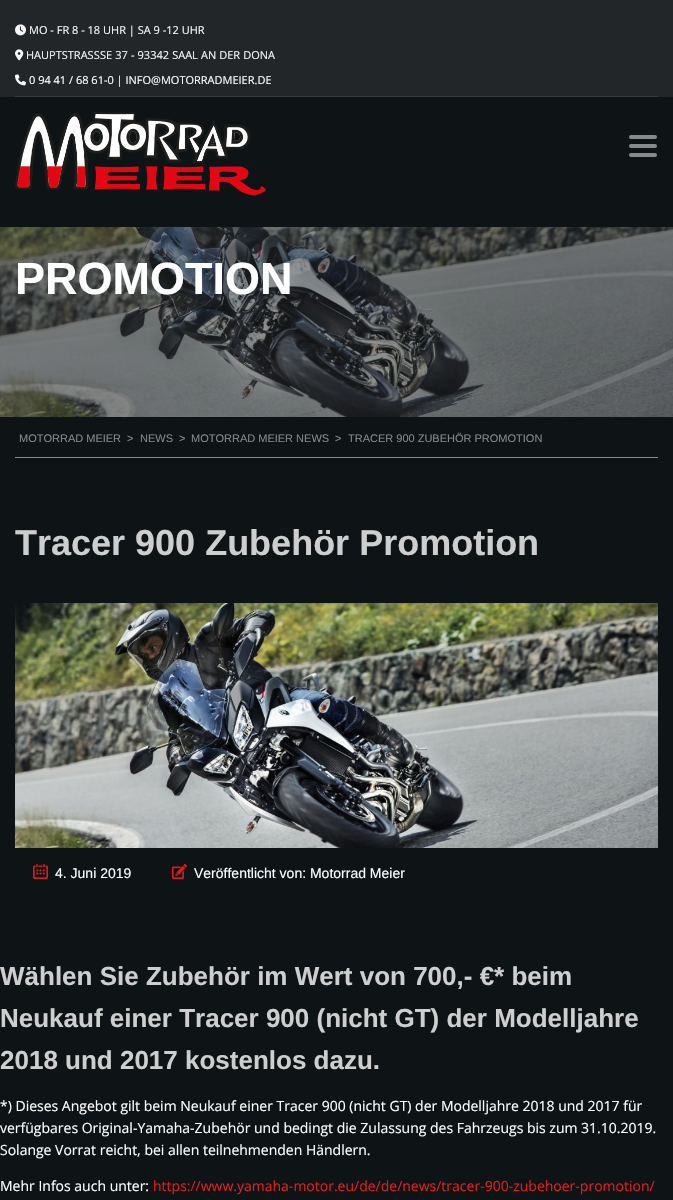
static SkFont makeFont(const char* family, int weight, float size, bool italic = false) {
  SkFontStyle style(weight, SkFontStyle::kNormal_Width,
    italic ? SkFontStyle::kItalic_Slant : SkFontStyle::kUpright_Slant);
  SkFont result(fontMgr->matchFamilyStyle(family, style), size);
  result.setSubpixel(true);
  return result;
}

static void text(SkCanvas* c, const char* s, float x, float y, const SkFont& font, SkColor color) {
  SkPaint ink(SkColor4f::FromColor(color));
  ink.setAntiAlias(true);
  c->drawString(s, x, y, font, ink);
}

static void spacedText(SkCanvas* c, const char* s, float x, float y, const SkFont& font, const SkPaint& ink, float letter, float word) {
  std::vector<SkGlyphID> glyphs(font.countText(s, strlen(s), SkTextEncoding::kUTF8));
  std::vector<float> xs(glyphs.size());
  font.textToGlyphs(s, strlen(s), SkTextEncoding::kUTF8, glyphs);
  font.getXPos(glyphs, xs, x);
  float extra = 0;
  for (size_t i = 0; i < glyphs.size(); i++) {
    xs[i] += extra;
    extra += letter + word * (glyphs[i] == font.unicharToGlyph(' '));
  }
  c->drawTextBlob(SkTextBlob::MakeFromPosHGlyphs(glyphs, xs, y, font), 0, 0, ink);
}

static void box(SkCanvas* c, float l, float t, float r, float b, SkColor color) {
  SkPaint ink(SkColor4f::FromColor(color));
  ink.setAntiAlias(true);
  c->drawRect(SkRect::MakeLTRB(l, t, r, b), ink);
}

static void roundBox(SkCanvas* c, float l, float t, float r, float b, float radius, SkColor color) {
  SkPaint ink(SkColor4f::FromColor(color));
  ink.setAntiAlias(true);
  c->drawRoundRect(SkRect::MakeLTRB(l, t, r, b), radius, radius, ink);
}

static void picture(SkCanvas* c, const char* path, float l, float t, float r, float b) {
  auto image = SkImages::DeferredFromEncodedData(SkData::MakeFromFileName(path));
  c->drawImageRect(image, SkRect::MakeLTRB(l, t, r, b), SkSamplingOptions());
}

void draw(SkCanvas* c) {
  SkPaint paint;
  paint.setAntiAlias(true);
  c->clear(0xff0e1315);
  box(c, 0, 0, 673, 97, 0xff232628);
  box(c, 15, 96, 658, 97, 0xff373b3e);
  picture(c, "img_01.png", 15, 24, 26, 36);
  SkFont face1 = makeFont("Open Sans", 400, 11);
  text(c, "MO - FR 8 - 18 UHR | SA 9 -12 UHR", 29, 34, face1, 0xfff7f7f7);
  picture(c, "img_02.png", 15, 49, 24, 61);
  text(c, "HAUPTSTRASS", 26, 59, face1, 0xfff7f7f7);
  paint.setColor(0xfff7f7f7);
  spacedText(c, "SE 37 - 93342 SAAL AN DER DONA", 100, 59, face1, paint, 0, 0.25f);
  picture(c, "img_03.png", 15, 74, 26, 86);
  text(c, "0 94 41 / 68 61-0 | INFO@MOTORRADMEIER.DE", 29, 84, face1, 0xffffffff);
  picture(c, "img_04.png", 15, 112, 266, 195);
  roundBox(c, 629, 135, 657, 139, 2, 0xff87898a);
  roundBox(c, 629, 144, 657, 148, 2, 0xff87898a);
  roundBox(c, 629, 153, 657, 157, 2, 0xff87898a);
  picture(c, "img_05.png", 0, 227, 673, 417);
  SkFont face2 = makeFont("Liberation Sans", 700, 45);
  text(c, "PROMOTION", 15, 294, face2, 0xffffffff);
  box(c, 15, 457, 658, 458, 0xff87898a);
  SkFont face3 = makeFont("Liberation Sans", 400, 11);
  text(c, "MOTORRAD MEIER", 19, 442, face3, 0xff888888);
  text(c, ">", 127, 442, face3, 0xff888888);
  text(c, "NEWS", 140, 442, face3, 0xff888888);
  text(c, ">", 179, 442, face3, 0xff888888);
  text(c, "MOTORRAD MEIER NEWS", 191, 442, face3, 0xff888888);
  text(c, ">", 335, 442, face3, 0xff888888);
  text(c, "TRACER 900 ZUBEHÖR PROMOTION", 348, 442, face3, 0xff888888);
  SkFont face4 = makeFont("Liberation Sans", 700, 36);
  text(c, "Tracer 900 Zubehör Promotion", 15, 555, face4, 0xffcecece);
  picture(c, "img_06.png", 15, 603, 658, 848);
  picture(c, "img_07.png", 33, 864, 48, 879);
  SkFont face5 = makeFont("Liberation Sans", 400, 14);
  text(c, "4. Juni 2019", 55, 878, face5, 0xffffffff);
  picture(c, "img_08.png", 172, 864, 187, 879);
  text(c, "Veröffentlicht von: Motorrad Meier", 194, 878, face5, 0xffffffff);
  SkFont face6 = makeFont("Liberation Sans", 700, 26);
  text(c, "Wählen Sie Zubehör im Wert von 700,- €* beim", 0, 985, face6, 0xffcecece);
  text(c, "Neukauf einer Tracer 900 (nicht GT) der Modelljahre", 0, 1027, face6, 0xffcecece);
  text(c, "2018 und 2017 kostenlos dazu.", 0, 1069, face6, 0xffcecece);
  SkFont face7 = makeFont("Open Sans", 400, 14);
  text(c, "*) Dieses Angebot gilt beim Neukauf einer Tracer 900 (nicht GT) der Modelljahre 2018 und 2017 für", 0, 1111, face7, 0xffffffff);
  text(c, "verfügbares Original-Yamaha-Zubehör und bedingt die Zulassung des Fahrzeugs bis zum 31.10.2019.", 0, 1133, face7, 0xffffffff);
  text(c, "Solange Vorrat reicht, bei allen teilnehmenden Händlern.", 0, 1155, face7, 0xffffffff);
  text(c, "Mehr Infos auch unter:", 0, 1191, face7, 0xffffffff);
  text(c, "https://www.yamaha-motor.eu/de/de/news/tracer-900-zubehoer-promotion/", 153, 1191, face7, 0xffdf1d1d);
}
